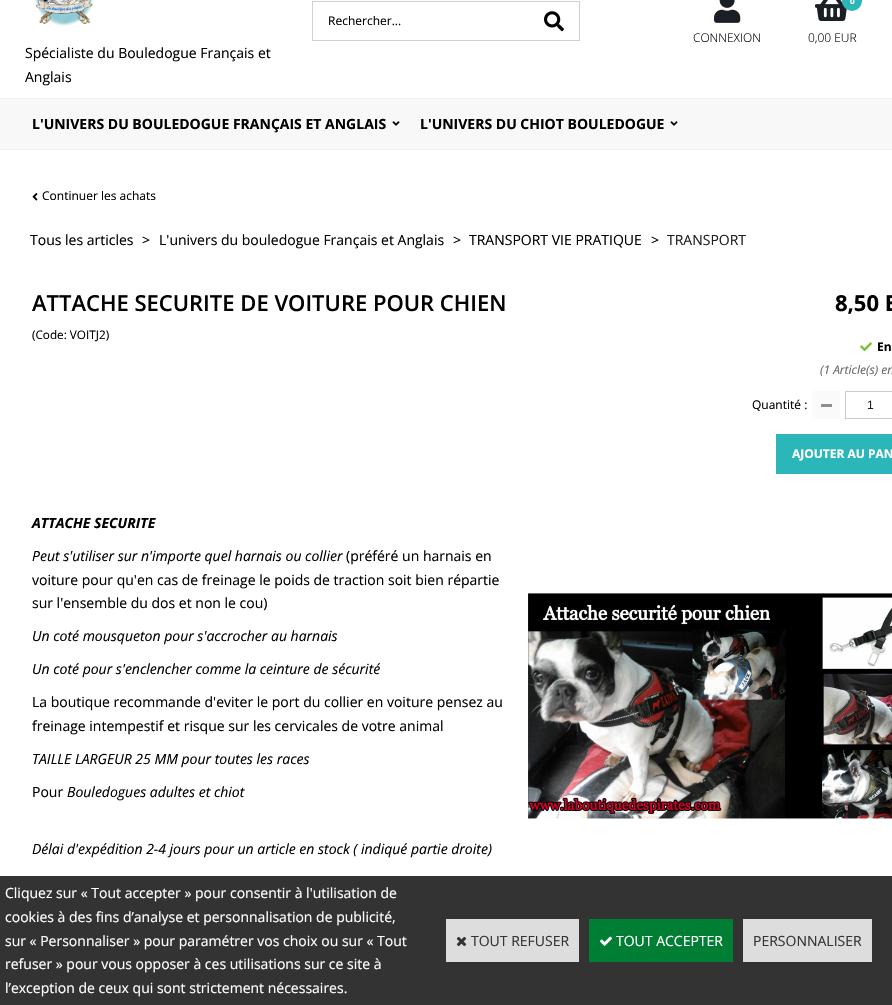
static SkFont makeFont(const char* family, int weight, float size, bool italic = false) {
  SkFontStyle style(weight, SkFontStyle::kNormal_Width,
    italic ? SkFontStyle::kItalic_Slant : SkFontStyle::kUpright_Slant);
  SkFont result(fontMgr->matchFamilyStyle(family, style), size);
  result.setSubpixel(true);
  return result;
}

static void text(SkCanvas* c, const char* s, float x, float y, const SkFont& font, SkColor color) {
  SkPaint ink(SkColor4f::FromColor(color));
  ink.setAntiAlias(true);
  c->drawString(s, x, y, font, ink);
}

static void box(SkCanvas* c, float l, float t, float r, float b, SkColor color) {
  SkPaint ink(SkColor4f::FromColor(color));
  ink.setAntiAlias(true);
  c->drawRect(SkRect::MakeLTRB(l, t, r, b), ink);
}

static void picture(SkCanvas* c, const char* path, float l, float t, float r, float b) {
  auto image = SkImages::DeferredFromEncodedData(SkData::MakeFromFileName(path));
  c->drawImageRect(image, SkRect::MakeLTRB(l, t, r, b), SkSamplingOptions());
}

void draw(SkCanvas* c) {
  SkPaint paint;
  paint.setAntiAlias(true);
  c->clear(0xffffffff);
  box(c, 312, 1, 580, 2, 0xffd0d0d0);
  box(c, 312, 40, 529, 41, 0xffd0d0d0);
  box(c, 312, 1, 313, 41, 0xffd0d0d0);
  SkFont face1 = makeFont("Open Sans", 400, 12);
  text(c, "Rechercher...", 328, 25, face1, 0xff000000);
  box(c, 579, 1, 580, 41, 0xffd0d0d0);
  box(c, 529, 40, 580, 41, 0xffd0d0d0);
  picture(c, "img_01.png", 544, 11, 564, 32);
  picture(c, "img_02.png", 714, 0, 741, 23);
  SkFont face2 = makeFont("Open Sans", 300, 12);
  text(c, "CONNEXION", 693, 42, face2, 0xff000000);
  picture(c, "img_03.png", 815, 0, 847, 21);
  paint.setColor(0xff2bb7ba);
  c->drawCircle(852, 1, 10, paint);
  SkFont face3 = makeFont("Open Sans", 700, 8);
  text(c, "0", 850, 4, face3, 0xffffffff);
  text(c, "0,00 EUR", 808, 42, face2, 0xff000000);
  picture(c, "img_04.png", 34, 0, 94, 26);
  SkFont face4 = makeFont("Open Sans", 400, 14);
  text(c, "Spécialiste du Bouledogue Français et", 25, 58, face4, 0xff000000);
  text(c, "Anglais", 25, 82, face4, 0xff000000);
  box(c, 0, 99, 892, 149, 0xfff8f8f8);
  box(c, 0, 98, 892, 99, 0xfff1f1f1);
  box(c, 0, 149, 892, 150, 0xfff1f1f1);
  SkFont face5 = makeFont("Open Sans", 700, 14);
  text(c, "L'UNIVERS DU BOULEDOGUE FRANÇAIS ET ANGLAIS", 32, 129, face5, 0xff000000);
  picture(c, "img_05.png", 392, 121, 400, 126);
  text(c, "L'UNIVERS DU CHIOT BOULEDOGUE", 420, 129, face5, 0xff000000);
  picture(c, "img_05.png", 670, 121, 678, 126);
  picture(c, "img_06.png", 32, 193, 38, 201);
  text(c, "Continuer les achats", 42, 200, face1, 0xff000000);
  text(c, "Tous les articles", 30, 245, face4, 0xff000000);
  text(c, ">", 142, 245, face4, 0xff000000);
  text(c, "L'univers du bouledogue Français et Anglais", 159, 245, face4, 0xff000000);
  text(c, ">", 453, 245, face4, 0xff000000);
  text(c, "TRANSPORT VIE PRATIQUE", 469, 245, face4, 0xff000000);
  text(c, ">", 651, 245, face4, 0xff000000);
  text(c, "TRANSPORT", 667, 245, face4, 0xff1a1f26);
  SkFont face6 = makeFont("Open Sans", 600, 22);
  text(c, "ATTACHE SECURITE DE VOITURE POUR CHIEN", 32, 311, face6, 0xff000000);
  SkFont face7 = makeFont("Open Sans", 400, 11.75f);
  text(c, "(Code: VOITJ2)", 32, 339, face7, 0xff000000);
  SkFont face8 = makeFont("Open Sans", 700, 22);
  text(c, "8,50 E", 835, 311, face8, 0xff000000);
  picture(c, "img_07.png", 860, 342, 872, 352);
  SkFont face9 = makeFont("Open Sans", 700, 12);
  text(c, "En", 877, 351, face9, 0xff000000);
  SkFont face10 = makeFont("Open Sans", 400, 12, true);
  text(c, "(1 Article(s) en", 820, 374, face10, 0xff666666);
  text(c, "Quantité :", 752, 409, face1, 0xff000000);
  box(c, 812, 391, 840, 419, 0xfffafafa);
  box(c, 821, 404, 832, 407, 0xff8e8e8e);
  paint.setStyle(SkPaint::kStroke_Style);
  paint.setStrokeWidth(1);
  paint.setColor(0xffcccccc);
  c->drawRect(SkRect::MakeLTRB(845.5f, 391.5f, 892.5f, 418.5f), paint);
  SkFont face11 = makeFont("Liberation Sans", 400, 12);
  text(c, "1", 867, 409, face11, 0xff212121);
  box(c, 776, 434, 892, 474, 0xff2bb7ba);
  text(c, "AJOUTER AU PAN", 792, 458, face9, 0xffffffff);
  SkFont face12 = makeFont("Open Sans", 700, 14, true);
  text(c, "ATTACHE SECURITE", 32, 528, face12, 0xff000000);
  SkFont face13 = makeFont("Open Sans", 400, 14, true);
  text(c, "Peut s'utiliser sur n'importe quel harnais ou collier", 32, 561, face13, 0xff000000);
  text(c, "(préféré un harnais en", 346, 561, face4, 0xff000000);
  text(c, "voiture pour qu'en cas de freinage le poids de traction soit bien répartie", 32, 585, face4, 0xff000000);
  text(c, "sur l'ensemble du dos et non le cou)", 32, 608, face4, 0xff000000);
  text(c, "Un coté mousqueton pour s'accrocher au harnais", 32, 641, face13, 0xff000000);
  text(c, "Un coté pour s'enclencher comme la ceinture de sécurité", 32, 674, face13, 0xff000000);
  text(c, "La boutique recommande d'eviter le port du collier en voiture pensez au", 32, 707, face4, 0xff000000);
  text(c, "freinage intempestif et risque sur les cervicales de votre animal", 32, 731, face4, 0xff000000);
  text(c, "TAILLE LARGEUR 25 MM pour toutes les races", 32, 764, face13, 0xff000000);
  text(c, "Pour", 32, 797, face4, 0xff000000);
  text(c, "Bouledogues adultes et chiot", 67, 797, face13, 0xff000000);
  text(c, "Délai d'expédition 2-4 jours pour un article en stock ( indiqué partie droite)", 32, 854, face13, 0xff000000);
  picture(c, "img_08.png", 528, 593, 892, 819);
  box(c, 0, 876, 892, 1005, 0xff333333);
  text(c, "Cliquez sur « Tout accepter » pour consentir à l'utilisation de", 5, 898, face4, 0xffffffff);
  text(c, "cookies à des fins d’analyse et personnalisation de publicité,", 5, 922, face4, 0xffffffff);
  text(c, "sur « Personnaliser » pour paramétrer vos choix ou sur « Tout", 5, 946, face4, 0xffffffff);
  text(c, "refuser » pour vous opposer à ces utilisations sur ce site à", 5, 969, face4, 0xffffffff);
  text(c, "l’exception de ceux qui sont strictement nécessaires.", 5, 993, face4, 0xffffffff);
  box(c, 446, 919, 579, 962, 0xffdddddd);
  picture(c, "img_09.png", 456, 936, 467, 947);
  text(c, "TOUT REFUSER", 471, 946, face4, 0xff333333);
  box(c, 589, 919, 733, 962, 0xff007e33);
  picture(c, "img_10.png", 600, 936, 612, 946);
  text(c, "TOUT ACCEPTER", 616, 946, face4, 0xffffffff);
  box(c, 743, 919, 872, 962, 0xffdddddd);
  text(c, "PERSONNALISER", 753, 946, face4, 0xff333333);
}
